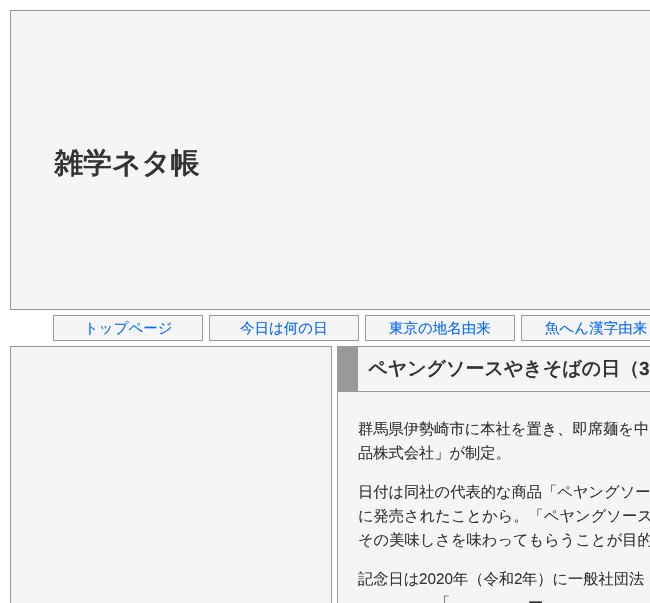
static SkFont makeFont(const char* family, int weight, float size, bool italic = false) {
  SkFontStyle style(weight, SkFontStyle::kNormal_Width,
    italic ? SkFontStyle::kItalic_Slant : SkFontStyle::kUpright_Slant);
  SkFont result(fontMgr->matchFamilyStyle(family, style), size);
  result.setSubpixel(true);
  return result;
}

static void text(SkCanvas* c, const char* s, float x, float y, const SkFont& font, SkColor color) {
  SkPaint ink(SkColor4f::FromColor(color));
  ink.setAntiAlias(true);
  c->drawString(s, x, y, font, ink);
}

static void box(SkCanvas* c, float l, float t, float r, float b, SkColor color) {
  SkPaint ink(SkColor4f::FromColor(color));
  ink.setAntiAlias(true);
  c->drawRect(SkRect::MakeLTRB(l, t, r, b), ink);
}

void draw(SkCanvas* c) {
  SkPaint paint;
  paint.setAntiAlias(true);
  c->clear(0xffffffff);
  paint.setColor(0xfff5f5f5);
  c->drawRect(SkRect::MakeLTRB(10.5f, 10.5f, 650.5f, 309.5f), paint);
  paint.setStyle(SkPaint::kStroke_Style);
  paint.setStrokeWidth(1);
  paint.setColor(0xff999999);
  c->drawRect(SkRect::MakeLTRB(10.5f, 10.5f, 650.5f, 309.5f), paint);
  SkFont face1 = makeFont("WenQuanYi Zen Hei", 700, 28.75f);
  text(c, "雑学ネタ帳", 54, 173, face1, 0xff333333);
  paint.setStyle(SkPaint::kFill_Style);
  paint.setColor(0xfff5f5f5);
  c->drawRect(SkRect::MakeLTRB(53.5f, 315.5f, 202.5f, 340.5f), paint);
  paint.setStyle(SkPaint::kStroke_Style);
  paint.setColor(0xff999999);
  c->drawRect(SkRect::MakeLTRB(53.5f, 315.5f, 202.5f, 340.5f), paint);
  SkFont face2 = makeFont("WenQuanYi Zen Hei", 500, 14.5f);
  text(c, "トップページ", 84, 333, face2, 0xff0066ff);
  paint.setStyle(SkPaint::kFill_Style);
  paint.setColor(0xfff5f5f5);
  c->drawRect(SkRect::MakeLTRB(209.5f, 315.5f, 358.5f, 340.5f), paint);
  paint.setStyle(SkPaint::kStroke_Style);
  paint.setColor(0xff999999);
  c->drawRect(SkRect::MakeLTRB(209.5f, 315.5f, 358.5f, 340.5f), paint);
  text(c, "今日は何の日", 240, 333, face2, 0xff0066ff);
  paint.setStyle(SkPaint::kFill_Style);
  paint.setColor(0xfff5f5f5);
  c->drawRect(SkRect::MakeLTRB(365.5f, 315.5f, 514.5f, 340.5f), paint);
  paint.setStyle(SkPaint::kStroke_Style);
  paint.setColor(0xff999999);
  c->drawRect(SkRect::MakeLTRB(365.5f, 315.5f, 514.5f, 340.5f), paint);
  text(c, "東京の地名由来", 389, 333, face2, 0xff0066ff);
  paint.setStyle(SkPaint::kFill_Style);
  paint.setColor(0xfff5f5f5);
  c->drawRect(SkRect::MakeLTRB(521.5f, 315.5f, 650.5f, 340.5f), paint);
  paint.setStyle(SkPaint::kStroke_Style);
  paint.setColor(0xff999999);
  c->drawRect(SkRect::MakeLTRB(521.5f, 315.5f, 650.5f, 340.5f), paint);
  text(c, "魚へん漢字由来", 545, 333, face2, 0xff0066ff);
  paint.setStyle(SkPaint::kFill_Style);
  paint.setColor(0xfff5f5f5);
  c->drawRect(SkRect::MakeLTRB(10.5f, 346.5f, 331.5f, 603.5f), paint);
  paint.setStyle(SkPaint::kStroke_Style);
  paint.setColor(0xff999999);
  c->drawRect(SkRect::MakeLTRB(10.5f, 346.5f, 331.5f, 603.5f), paint);
  paint.setStyle(SkPaint::kFill_Style);
  paint.setColor(0xfff5f5f5);
  c->drawRect(SkRect::MakeLTRB(337.5f, 346.5f, 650.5f, 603.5f), paint);
  paint.setStyle(SkPaint::kStroke_Style);
  paint.setColor(0xff999999);
  c->drawRect(SkRect::MakeLTRB(337.5f, 346.5f, 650.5f, 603.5f), paint);
  box(c, 358, 391, 650, 392, 0xff999999);
  box(c, 338, 347, 358, 392, 0xff999999);
  SkFont face3 = makeFont("WenQuanYi Zen Hei", 700, 19);
  text(c, "ペヤングソースやきそばの日（", 368, 375, face3, 0xff333333);
  SkFont face4 = makeFont("Liberation Sans", 700, 19);
  text(c, "3", 639, 375, face4, 0xff333333);
  SkFont face5 = makeFont("WenQuanYi Zen Hei", 500, 15.25f);
  text(c, "群馬県伊勢崎市に本社を置き、即席麺を中", 358, 434, face5, 0xff333333);
  text(c, "品株式会社」が制定。", 358, 458, face5, 0xff333333);
  text(c, "日付は同社の代表的な商品「ペヤングソー", 358, 497, face5, 0xff333333);
  text(c, "に発売されたことから。「ペヤングソース", 358, 521, face5, 0xff333333);
  text(c, "その美味しさを味わってもらうことが目的", 358, 545, face5, 0xff333333);
  text(c, "記念日は", 358, 584, face5, 0xff333333);
  SkFont face6 = makeFont("Liberation Sans", 400, 15.25f);
  text(c, "2020", 419, 584, face6, 0xff333333);
  text(c, "年（令和", 453, 584, face5, 0xff333333);
  text(c, "2", 514, 584, face6, 0xff333333);
  text(c, "年）に一般社団法", 522, 584, face5, 0xff333333);
  text(c, "「", 435, 608, face5, 0xff333333);
  text(c, "ー", 528, 608, face5, 0xff333333);
}
